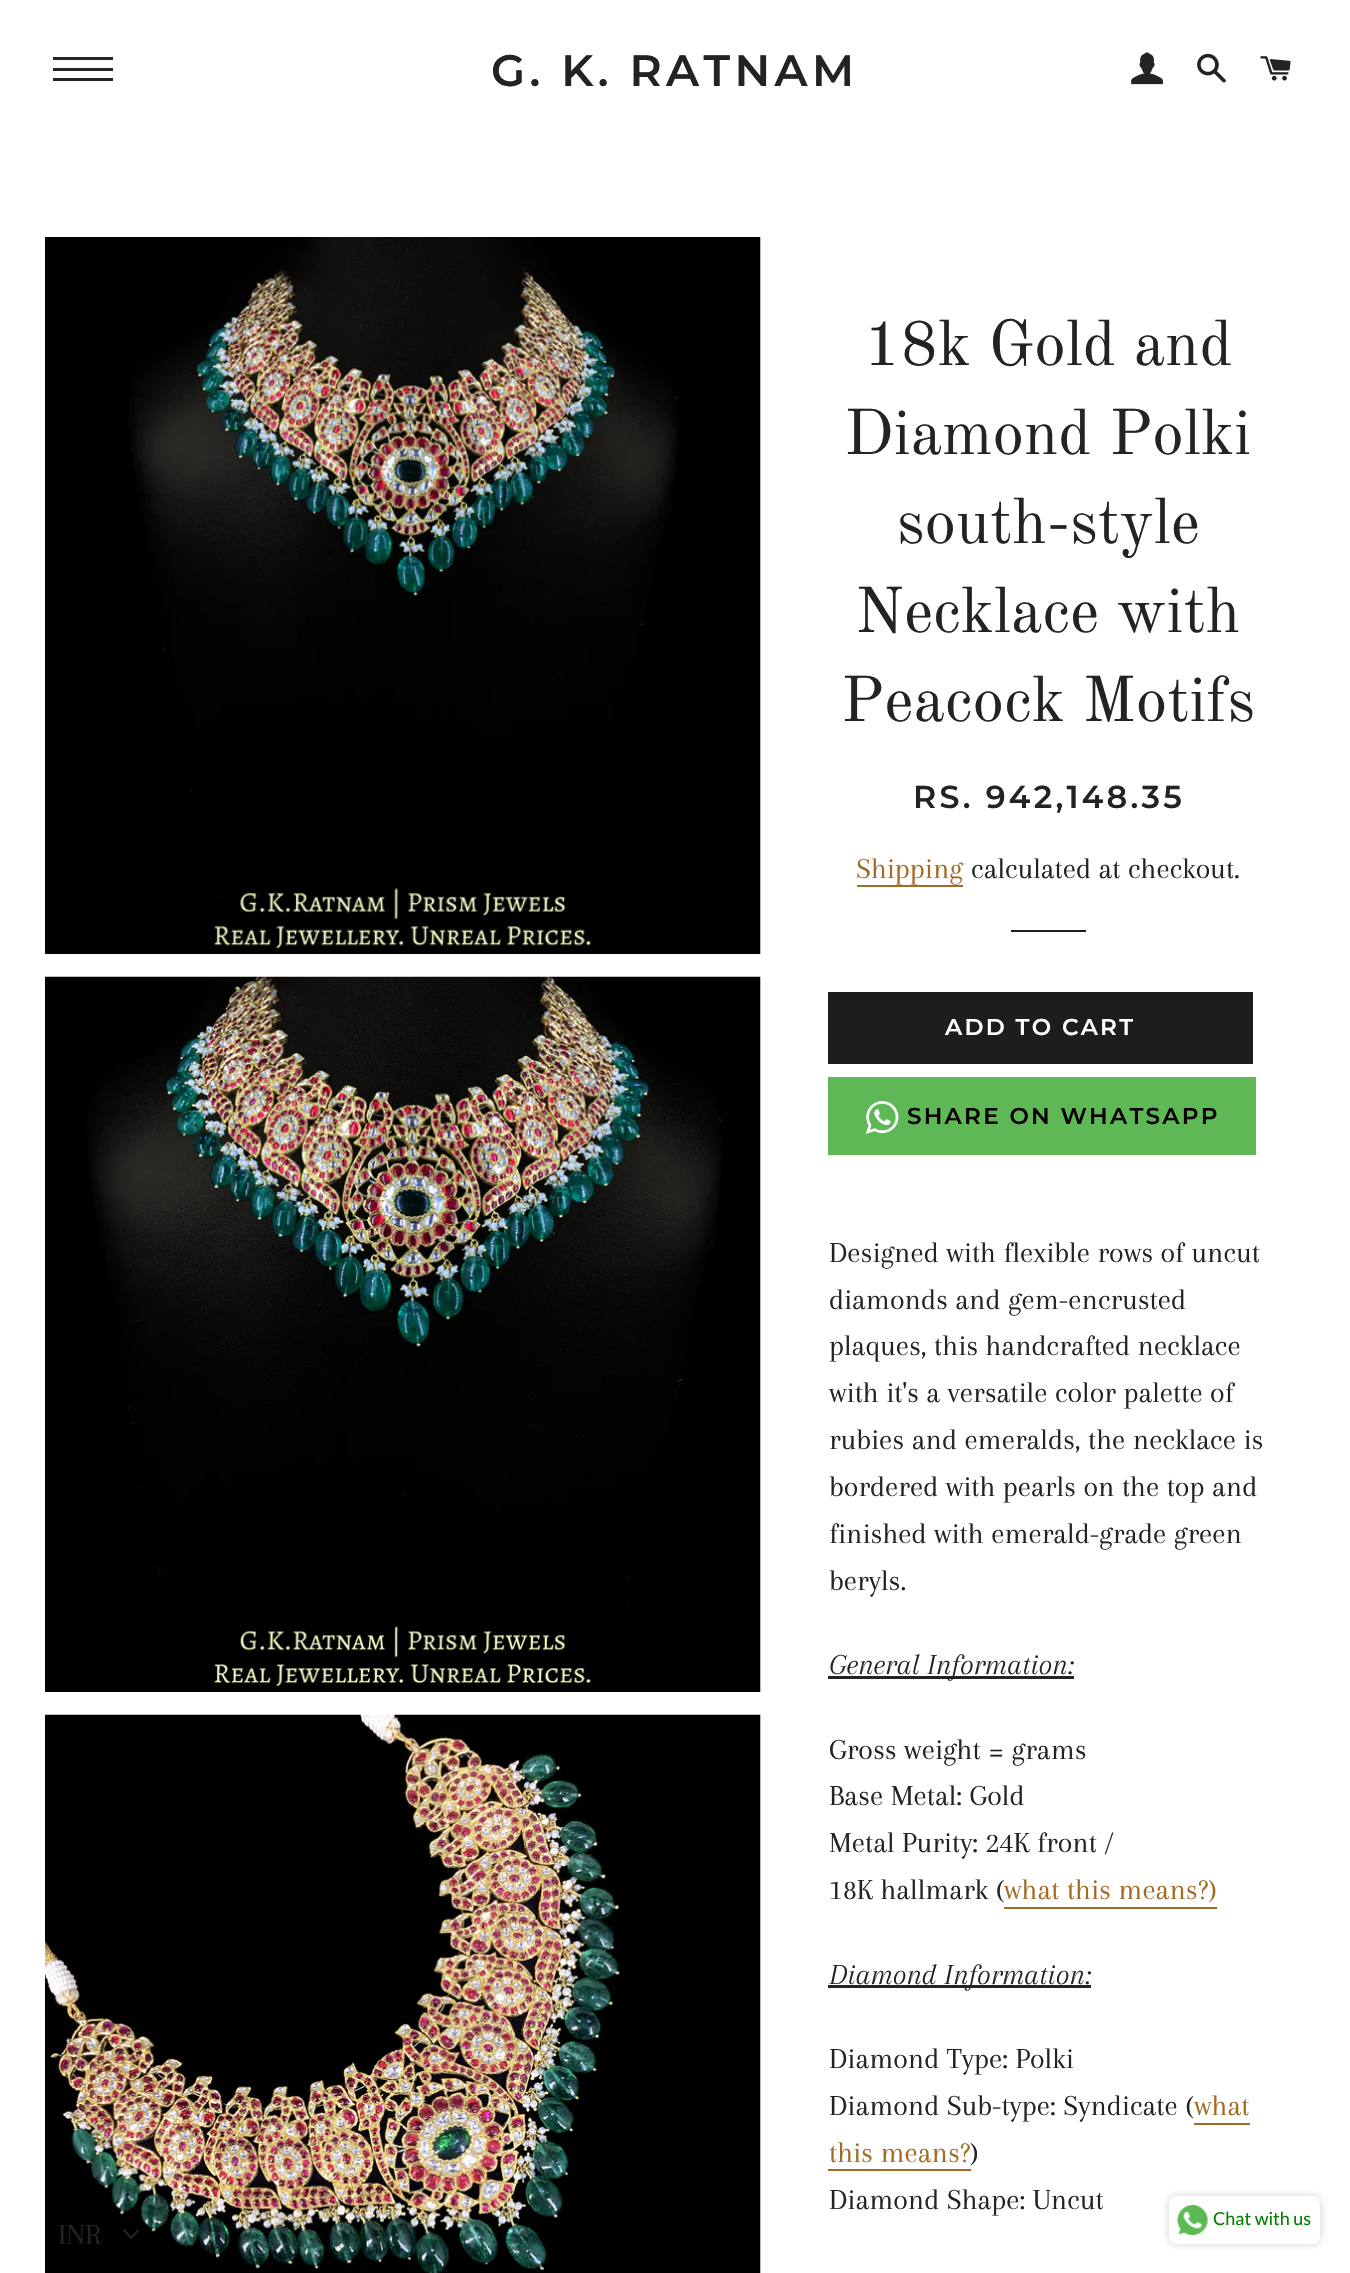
static SkFont makeFont(const char* family, int weight, float size, bool italic = false) {
  SkFontStyle style(weight, SkFontStyle::kNormal_Width,
    italic ? SkFontStyle::kItalic_Slant : SkFontStyle::kUpright_Slant);
  SkFont result(fontMgr->matchFamilyStyle(family, style), size);
  result.setSubpixel(true);
  return result;
}

static void text(SkCanvas* c, const char* s, float x, float y, const SkFont& font, SkColor color) {
  SkPaint ink(SkColor4f::FromColor(color));
  ink.setAntiAlias(true);
  c->drawString(s, x, y, font, ink);
}

static void spacedText(SkCanvas* c, const char* s, float x, float y, const SkFont& font, const SkPaint& ink, float letter, float word) {
  std::vector<SkGlyphID> glyphs(font.countText(s, strlen(s), SkTextEncoding::kUTF8));
  std::vector<float> xs(glyphs.size());
  font.textToGlyphs(s, strlen(s), SkTextEncoding::kUTF8, glyphs);
  font.getXPos(glyphs, xs, x);
  float extra = 0;
  for (size_t i = 0; i < glyphs.size(); i++) {
    xs[i] += extra;
    extra += letter + word * (glyphs[i] == font.unicharToGlyph(' '));
  }
  c->drawTextBlob(SkTextBlob::MakeFromPosHGlyphs(glyphs, xs, y, font), 0, 0, ink);
}

static void box(SkCanvas* c, float l, float t, float r, float b, SkColor color) {
  SkPaint ink(SkColor4f::FromColor(color));
  ink.setAntiAlias(true);
  c->drawRect(SkRect::MakeLTRB(l, t, r, b), ink);
}

static void roundBox(SkCanvas* c, float l, float t, float r, float b, float radius, SkColor color) {
  SkPaint ink(SkColor4f::FromColor(color));
  ink.setAntiAlias(true);
  c->drawRoundRect(SkRect::MakeLTRB(l, t, r, b), radius, radius, ink);
}

static void picture(SkCanvas* c, const char* path, float l, float t, float r, float b) {
  auto image = SkImages::DeferredFromEncodedData(SkData::MakeFromFileName(path));
  c->drawImageRect(image, SkRect::MakeLTRB(l, t, r, b), SkSamplingOptions());
}

void draw(SkCanvas* c) {
  SkPaint paint;
  paint.setAntiAlias(true);
  c->clear(0xffffffff);
  box(c, 53, 57, 113, 60, 0xff222323);
  box(c, 53, 68, 113, 71, 0xff222323);
  box(c, 53, 78, 113, 81, 0xff222323);
  SkFont face1 = makeFont("Montserrat", 600, 44.1f);
  paint.setColor(0xff222323);
  spacedText(c, "G. K. RATNAM", 491, 86, face1, paint, 4.4f, 0);
  picture(c, "img_01.png", 1131, 52, 1163, 85);
  picture(c, "img_02.png", 1197, 53, 1226, 83);
  picture(c, "img_03.png", 1260, 56, 1291, 81);
  box(c, 760, 1715, 761, 2273, 0xfff7f7f7);
  picture(c, "img_07.png", 45, 1714, 761, 2273);
  SkFont face2 = makeFont("Arapey", 400, 30);
  text(c, "INR", 58, 2244, face2, 0xff222323);
  picture(c, "img_04.png", 123, 2229, 140, 2239);
  box(c, 760, 237, 761, 954, 0xfff7f7f7);
  picture(c, "img_05.png", 45, 237, 761, 954);
  box(c, 760, 977, 761, 1692, 0xfff7f7f7);
  picture(c, "img_06.png", 45, 976, 761, 1692);
  SkFont face3 = makeFont("Old Standard TT", 400, 63.5f);
  text(c, "18k Gold and", 864, 365, face3, 0xff222323);
  text(c, "Diamond Polki", 844, 454, face3, 0xff222323);
  text(c, "south-style", 897, 543, face3, 0xff222323);
  text(c, "Necklace with", 855, 632, face3, 0xff222323);
  text(c, "Peacock Motifs", 841, 721, face3, 0xff222323);
  SkFont face4 = makeFont("Montserrat", 600, 31.75f);
  spacedText(c, "RS. 942,148.35", 913, 808, face4, paint, 3.25f, 0);
  text(c, "Shipping", 856, 878, face2, 0xffa26b25);
  box(c, 857, 885, 963, 887, 0xffa26b25);
  text(c, "calculated at checkout.", 971, 878, face2, 0xff222323);
  box(c, 1011, 930, 1086, 932, 0xff1c1d1d);
  box(c, 828, 992, 1253, 1064, 0xff1c1d1d);
  SkFont face5 = makeFont("Montserrat", 600, 23);
  paint.setColor(0xffffffff);
  spacedText(c, "ADD TO CART", 945, 1035, face5, paint, 2.25f, 0);
  box(c, 828, 1077, 1256, 1155, 0xff5db855);
  picture(c, "img_08.png", 865, 1101, 899, 1134);
  paint.setColor(0xff080000);
  spacedText(c, "SHARE ON WHATSAPP", 907, 1124, face5, paint, 2.25f, 0);
  text(c, "Designed with flexible rows of uncut", 829, 1262, face2, 0xff222323);
  text(c, "diamonds and gem-encrusted", 829, 1309, face2, 0xff222323);
  text(c, "plaques, this handcrafted necklace", 829, 1355, face2, 0xff222323);
  text(c, "with it's a versatile color palette of", 829, 1402, face2, 0xff222323);
  text(c, "rubies and emeralds, the necklace is", 829, 1449, face2, 0xff222323);
  text(c, "bordered with pearls on the top and", 829, 1496, face2, 0xff222323);
  text(c, "finished with emerald-grade green", 829, 1543, face2, 0xff222323);
  text(c, "beryls.", 829, 1590, face2, 0xff222323);
  box(c, 828, 1676, 1074, 1679, 0xff222323);
  SkFont face6 = makeFont("Arapey", 400, 30, true);
  text(c, "General Information:", 829, 1674, face6, 0xff222323);
  text(c, "Gross weight = grams", 829, 1759, face2, 0xff222323);
  text(c, "Base Metal: Gold", 829, 1805, face2, 0xff222323);
  text(c, "Metal Purity: 24K front /", 829, 1852, face2, 0xff222323);
  text(c, "18K hallmark (", 829, 1899, face2, 0xff222323);
  text(c, "what this means?)", 1004, 1899, face2, 0xffa26b25);
  box(c, 1004, 1907, 1217, 1909, 0xffa26b25);
  box(c, 828, 1985, 1091, 1988, 0xff222323);
  text(c, "Diamond Information:", 829, 1984, face6, 0xff222323);
  text(c, "Diamond Type: Polki", 829, 2068, face2, 0xff222323);
  text(c, "Diamond Sub-type: Syndicate (", 829, 2115, face2, 0xff222323);
  text(c, "what", 1194, 2115, face2, 0xffa26b25);
  box(c, 1194, 2123, 1250, 2125, 0xffa26b25);
  text(c, "this means?", 829, 2162, face2, 0xffa26b25);
  box(c, 828, 2169, 971, 2171, 0xffa26b25);
  text(c, ")", 970, 2162, face2, 0xff222323);
  text(c, "Diamond Shape: Uncut", 829, 2209, face2, 0xff222323);
  paint.setColor(0xffd3d3d3);
  paint.setMaskFilter(SkMaskFilter::MakeBlur(kNormal_SkBlurStyle, 4));
  c->drawRoundRect(SkRect::MakeLTRB(1169, 2196, 1320, 2244), 8, 8, paint);
  paint.setMaskFilter(nullptr);
  roundBox(c, 1169, 2196, 1320, 2244, 8, 0xffffffff);
  picture(c, "img_09.png", 1177, 2205, 1208, 2235);
  SkFont face7 = makeFont("Lato", 400, 18);
  text(c, "Chat with us", 1213, 2225, face7, 0xff008000);
}
